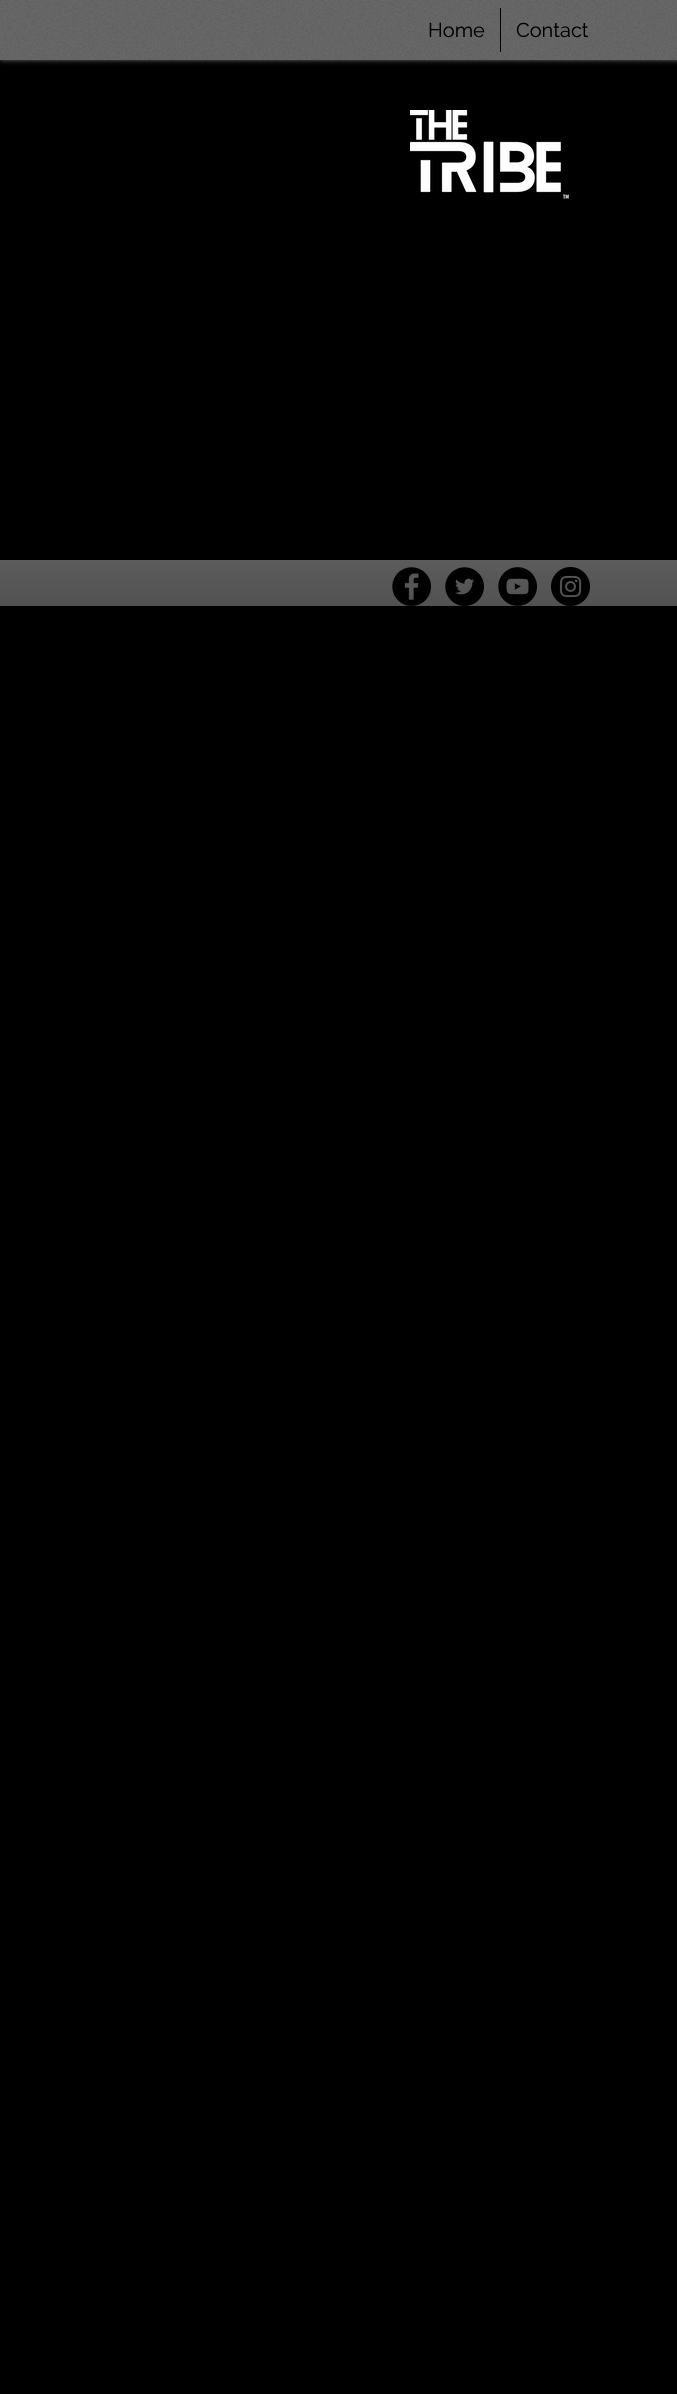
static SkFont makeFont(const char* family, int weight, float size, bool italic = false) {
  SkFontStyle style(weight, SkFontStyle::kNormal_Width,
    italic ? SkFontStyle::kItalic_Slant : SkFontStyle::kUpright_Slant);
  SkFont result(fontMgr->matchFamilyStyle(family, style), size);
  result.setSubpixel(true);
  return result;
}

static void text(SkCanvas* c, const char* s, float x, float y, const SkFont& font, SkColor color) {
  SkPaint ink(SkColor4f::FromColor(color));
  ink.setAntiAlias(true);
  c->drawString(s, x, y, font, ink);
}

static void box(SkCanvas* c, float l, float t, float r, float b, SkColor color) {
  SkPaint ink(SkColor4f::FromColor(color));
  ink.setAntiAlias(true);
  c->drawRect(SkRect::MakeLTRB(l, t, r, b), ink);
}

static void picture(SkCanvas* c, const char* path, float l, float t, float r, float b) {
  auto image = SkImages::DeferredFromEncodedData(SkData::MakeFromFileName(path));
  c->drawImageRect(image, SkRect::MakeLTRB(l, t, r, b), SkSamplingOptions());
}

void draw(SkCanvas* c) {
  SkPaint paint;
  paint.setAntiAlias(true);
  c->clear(0xff000000);
  paint.setColor(0xb3999999);
  paint.setMaskFilter(SkMaskFilter::MakeBlur(kNormal_SkBlurStyle, 2.5f));
  c->drawRect(SkRect::MakeLTRB(0, 0, 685, 60), paint);
  paint.setMaskFilter(nullptr);
  box(c, 0, 0, 677, 60, 0xff666666);
  picture(c, "img_01.png", 0, 0, 677, 60);
  SkFont face1 = makeFont("Raleway", 400, 20);
  text(c, "Home", 428, 37, face1, 0xff000000);
  box(c, 500, 8, 501, 52, 0xff000000);
  text(c, "Contact", 516, 37, face1, 0xff000000);
  picture(c, "img_02.png", 410, 110, 569, 199);
  box(c, 0, 560, 677, 606, 0xff222222);
  picture(c, "img_03.png", 0, 560, 677, 606);
  picture(c, "img_04.png", 392, 567, 431, 606);
  picture(c, "img_05.png", 445, 567, 484, 606);
  picture(c, "img_06.png", 498, 567, 537, 606);
  picture(c, "img_07.png", 551, 567, 590, 606);
}
